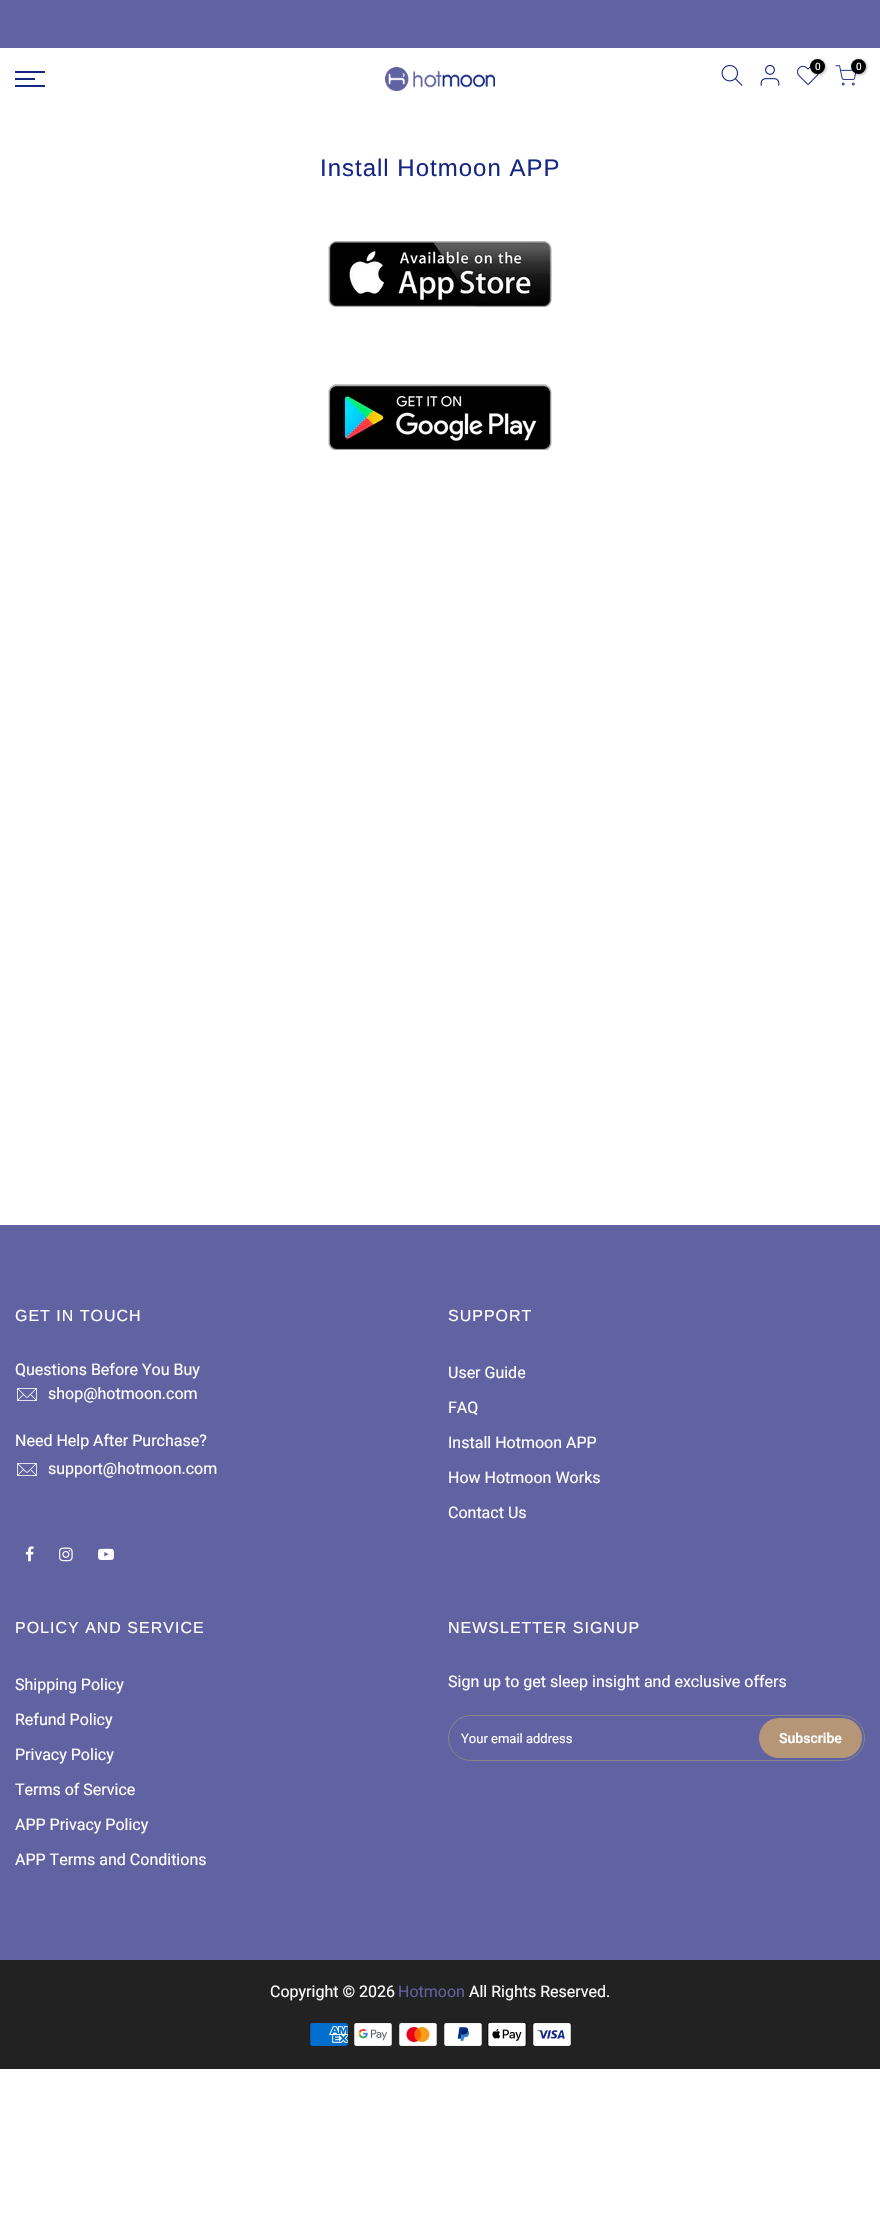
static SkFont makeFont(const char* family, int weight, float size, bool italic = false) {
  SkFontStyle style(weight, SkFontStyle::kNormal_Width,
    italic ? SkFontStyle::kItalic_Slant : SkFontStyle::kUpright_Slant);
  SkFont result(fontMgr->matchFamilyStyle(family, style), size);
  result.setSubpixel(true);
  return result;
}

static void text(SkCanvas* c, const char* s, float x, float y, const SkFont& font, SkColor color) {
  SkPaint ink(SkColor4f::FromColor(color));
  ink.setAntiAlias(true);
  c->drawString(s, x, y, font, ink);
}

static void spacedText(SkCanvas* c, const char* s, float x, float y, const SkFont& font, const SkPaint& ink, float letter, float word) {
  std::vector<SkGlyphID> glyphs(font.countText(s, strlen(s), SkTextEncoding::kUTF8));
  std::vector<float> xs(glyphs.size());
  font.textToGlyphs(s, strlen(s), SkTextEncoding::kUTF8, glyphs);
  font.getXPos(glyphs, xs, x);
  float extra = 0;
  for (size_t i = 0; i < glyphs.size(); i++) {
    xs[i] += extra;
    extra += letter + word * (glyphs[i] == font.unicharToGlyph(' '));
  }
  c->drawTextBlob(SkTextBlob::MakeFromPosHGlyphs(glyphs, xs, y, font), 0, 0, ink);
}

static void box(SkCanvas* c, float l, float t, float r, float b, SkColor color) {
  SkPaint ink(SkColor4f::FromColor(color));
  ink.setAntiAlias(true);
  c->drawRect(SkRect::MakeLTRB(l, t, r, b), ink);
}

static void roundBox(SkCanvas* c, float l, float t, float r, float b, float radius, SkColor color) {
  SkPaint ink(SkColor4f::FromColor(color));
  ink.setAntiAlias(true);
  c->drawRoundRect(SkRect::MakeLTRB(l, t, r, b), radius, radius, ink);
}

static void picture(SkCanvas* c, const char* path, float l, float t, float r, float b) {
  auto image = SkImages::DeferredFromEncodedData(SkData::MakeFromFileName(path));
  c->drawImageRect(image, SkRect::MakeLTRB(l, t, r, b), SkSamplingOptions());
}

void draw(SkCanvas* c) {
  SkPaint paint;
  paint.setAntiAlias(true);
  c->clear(0xffffffff);
  box(c, 0, 0, 880, 48, 0xff6062a1);
  box(c, 15, 71, 45, 73, 0xff132684);
  box(c, 15, 78, 35, 80, 0xff132684);
  box(c, 15, 85, 45, 87, 0xff132684);
  picture(c, "img_01.png", 385, 67, 495, 91);
  picture(c, "img_02.png", 721, 64, 743, 86);
  picture(c, "img_03.png", 760, 64, 780, 86);
  picture(c, "img_04.png", 797, 65, 819, 85);
  paint.setColor(0x4d000000);
  paint.setMaskFilter(SkMaskFilter::MakeBlur(kNormal_SkBlurStyle, 1.5f));
  c->drawRoundRect(SkRect::MakeLTRB(811, 60, 826, 75), 7.5f, 7.5f, paint);
  paint.setMaskFilter(nullptr);
  paint.setColor(0xff000000);
  c->drawCircle(817.5f, 66.5f, 7.5f, paint);
  SkFont face1 = makeFont("Roboto", 400, 10);
  text(c, "0", 815, 70, face1, 0xffffffff);
  picture(c, "img_05.png", 835, 65, 856, 86);
  paint.setColor(0x4d000000);
  paint.setMaskFilter(SkMaskFilter::MakeBlur(kNormal_SkBlurStyle, 1.5f));
  c->drawRoundRect(SkRect::MakeLTRB(852, 60, 867, 75), 7.5f, 7.5f, paint);
  paint.setMaskFilter(nullptr);
  paint.setColor(0xff000000);
  c->drawCircle(858.5f, 66.5f, 7.5f, paint);
  text(c, "0", 856, 70, face1, 0xffffffff);
  SkFont face2 = makeFont("Liberation Sans", 400, 24);
  paint.setColor(0xff132684);
  spacedText(c, "Install Hotmoon APP", 320, 176, face2, paint, 1, 0);
  picture(c, "img_06.png", 328, 241, 552, 307);
  picture(c, "img_07.png", 328, 384, 552, 450);
  box(c, 0, 1225, 880, 1960, 0xff6062a1);
  SkFont face3 = makeFont("Liberation Sans", 400, 16);
  paint.setColor(0xffffffff);
  spacedText(c, "GET IN TOUCH", 15, 1321, face3, paint, 1, 0);
  SkFont face4 = makeFont("Roboto", 400, 16);
  text(c, "Questions Before You Buy", 15, 1375, face4, 0xffffffff);
  picture(c, "img_08.png", 17, 1388, 37, 1401);
  text(c, "shop@hotmoon.com", 48, 1399, face4, 0xffffffff);
  text(c, "Need Help After Purchase?", 15, 1446, face4, 0xffffffff);
  picture(c, "img_08.png", 17, 1463, 37, 1476);
  text(c, "support@hotmoon.com", 48, 1474, face4, 0xffffffff);
  picture(c, "img_09.png", 25, 1546, 34, 1562);
  picture(c, "img_10.png", 59, 1547, 73, 1562);
  picture(c, "img_11.png", 98, 1548, 114, 1560);
  spacedText(c, "SUPPORT", 448, 1321, face3, paint, 1, 0);
  text(c, "User Guide", 448, 1378, face4, 0xffffffff);
  text(c, "FAQ", 448, 1413, face4, 0xffffffff);
  text(c, "Install Hotmoon APP", 448, 1448, face4, 0xffffffff);
  text(c, "How Hotmoon Works", 448, 1483, face4, 0xffffffff);
  text(c, "Contact Us", 448, 1518, face4, 0xffffffff);
  spacedText(c, "POLICY AND SERVICE", 15, 1633, face3, paint, 1, 0);
  text(c, "Shipping Policy", 15, 1690, face4, 0xffffffff);
  text(c, "Refund Policy", 15, 1725, face4, 0xffffffff);
  text(c, "Privacy Policy", 15, 1760, face4, 0xffffffff);
  text(c, "Terms of Service", 15, 1795, face4, 0xffffffff);
  text(c, "APP Privacy Policy", 15, 1830, face4, 0xffffffff);
  text(c, "APP Terms and Conditions", 15, 1865, face4, 0xffffffff);
  spacedText(c, "NEWSLETTER SIGNUP", 448, 1633, face3, paint, 1, 0);
  text(c, "Sign up to get sleep insight and exclusive offers", 448, 1687, face4, 0xffffffff);
  paint.setStyle(SkPaint::kStroke_Style);
  paint.setStrokeWidth(1);
  paint.setColor(0xff878787);
  c->drawRoundRect(SkRect::MakeLTRB(448.5f, 1715.5f, 864.5f, 1760.5f), 22.5f, 22.5f, paint);
  SkFont face5 = makeFont("Roboto", 400, 13);
  text(c, "Your email address", 461, 1743, face5, 0xffffffff);
  roundBox(c, 759, 1718, 862, 1758, 20, 0xffb59677);
  SkFont face6 = makeFont("Roboto", 600, 14);
  text(c, "Subscribe", 779, 1743, face6, 0xffffffff);
  box(c, 0, 1960, 880, 2069, 0xff222222);
  text(c, "Copyright © 2026", 270, 1997, face4, 0xffffffff);
  text(c, "Hotmoon", 398, 1997, face4, 0xff6062a1);
  text(c, "All Rights Reserved.", 469, 1997, face4, 0xffffffff);
  picture(c, "img_12.png", 310, 2023, 348, 2046);
  picture(c, "img_13.png", 354, 2023, 392, 2046);
  picture(c, "img_14.png", 399, 2023, 437, 2046);
  picture(c, "img_15.png", 444, 2023, 482, 2046);
  picture(c, "img_16.png", 487, 2022, 527, 2047);
  picture(c, "img_17.png", 533, 2023, 571, 2046);
}
